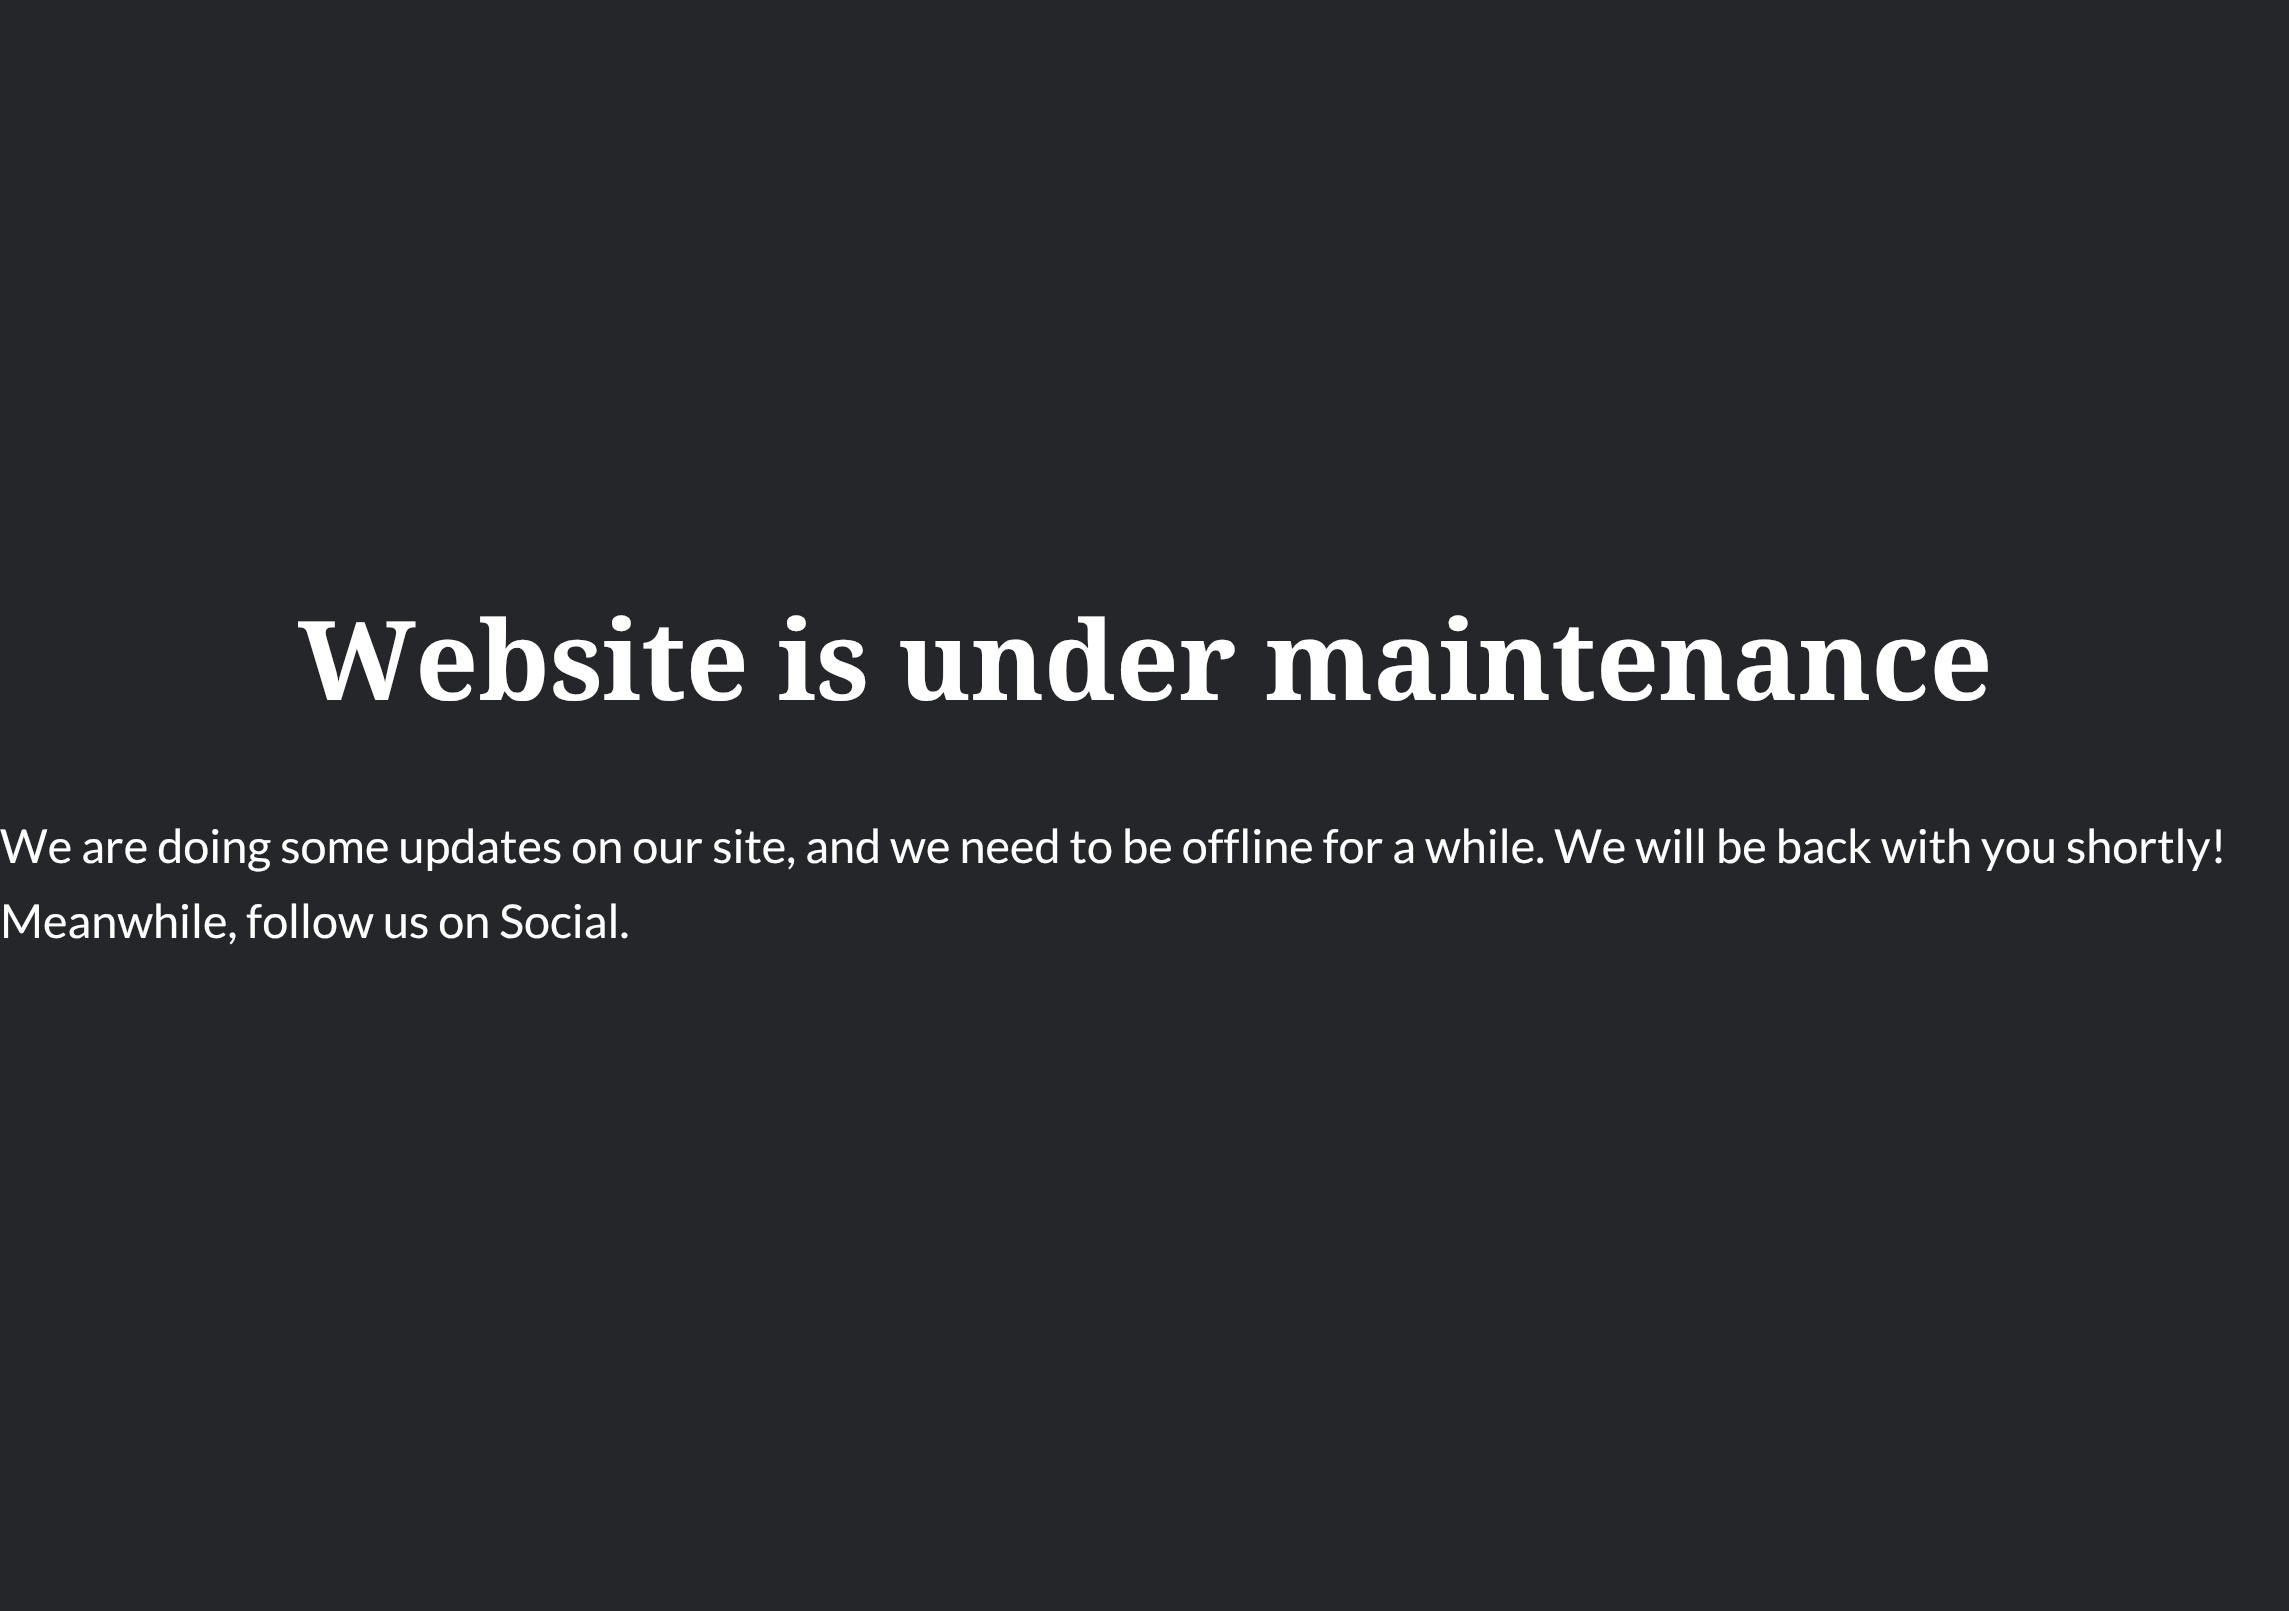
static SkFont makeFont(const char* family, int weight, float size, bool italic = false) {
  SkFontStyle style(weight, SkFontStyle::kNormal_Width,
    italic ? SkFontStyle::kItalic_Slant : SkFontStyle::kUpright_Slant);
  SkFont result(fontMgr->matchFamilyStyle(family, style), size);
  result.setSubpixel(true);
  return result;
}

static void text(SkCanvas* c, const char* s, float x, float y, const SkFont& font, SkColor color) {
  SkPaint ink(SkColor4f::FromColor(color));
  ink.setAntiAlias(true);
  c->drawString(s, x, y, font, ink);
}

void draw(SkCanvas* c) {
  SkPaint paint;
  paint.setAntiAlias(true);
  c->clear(0xff242629);
  SkFont face1 = makeFont("Noto Serif", 700, 110);
  text(c, "Website is under maintenance", 298, 700, face1, 0xffffffff);
  SkFont face2 = makeFont("Lato", 400, 46.75f);
  text(c, "We are doing some updates on our site, and we need to be offline for a while. We will be back with you shortly!", 0, 863, face2, 0xffffffff);
  text(c, "Meanwhile, follow us on Social.", 0, 938, face2, 0xffffffff);
}
